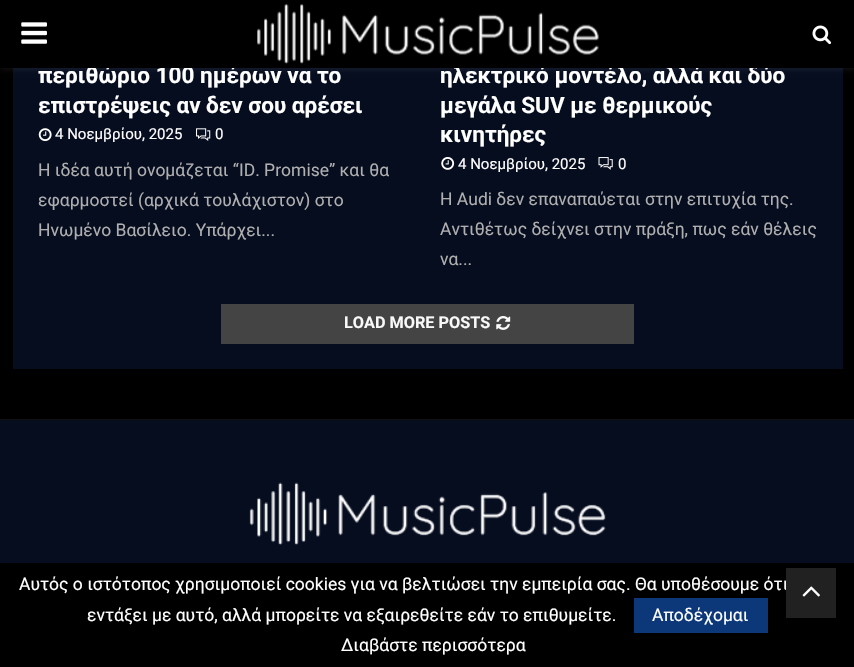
static SkFont makeFont(const char* family, int weight, float size, bool italic = false) {
  SkFontStyle style(weight, SkFontStyle::kNormal_Width,
    italic ? SkFontStyle::kItalic_Slant : SkFontStyle::kUpright_Slant);
  SkFont result(fontMgr->matchFamilyStyle(family, style), size);
  result.setSubpixel(true);
  return result;
}

static void text(SkCanvas* c, const char* s, float x, float y, const SkFont& font, SkColor color) {
  SkPaint ink(SkColor4f::FromColor(color));
  ink.setAntiAlias(true);
  c->drawString(s, x, y, font, ink);
}

static void box(SkCanvas* c, float l, float t, float r, float b, SkColor color) {
  SkPaint ink(SkColor4f::FromColor(color));
  ink.setAntiAlias(true);
  c->drawRect(SkRect::MakeLTRB(l, t, r, b), ink);
}

static void picture(SkCanvas* c, const char* path, float l, float t, float r, float b) {
  auto image = SkImages::DeferredFromEncodedData(SkData::MakeFromFileName(path));
  c->drawImageRect(image, SkRect::MakeLTRB(l, t, r, b), SkSamplingOptions());
}

void draw(SkCanvas* c) {
  SkPaint paint;
  paint.setAntiAlias(true);
  c->clear(0xff000000);
  box(c, 13, 68, 843, 369, 0xff060d1f);
  paint.setColor(0x14ffffff);
  paint.setMaskFilter(SkMaskFilter::MakeBlur(kNormal_SkBlurStyle, 3));
  c->drawRect(SkRect::MakeLTRB(0, 1, 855, 69), paint);
  paint.setMaskFilter(nullptr);
  SkFont face1 = makeFont("Roboto", 700, 22.5f);
  text(c, "περιθώριο 100 ημέρων να το", 38, 83, face1, 0xffffffff);
  text(c, "ηλεκτρικό μοντέλο, αλλά και δύο", 440, 83, face1, 0xffffffff);
  box(c, 0, 0, 854, 68, 0xff000000);
  picture(c, "img_01.png", 21, 22, 47, 44);
  picture(c, "img_02.png", 257, 3, 599, 64);
  picture(c, "img_03.png", 812, 25, 832, 45);
  text(c, "επιστρέψεις αν δεν σου αρέσει", 38, 113, face1, 0xffffffff);
  picture(c, "img_04.png", 38, 128, 52, 142);
  SkFont face2 = makeFont("Roboto", 400, 15);
  text(c, "4 Νοεμβρίου, 2025", 55, 139, face2, 0xffffffff);
  picture(c, "img_05.png", 196, 128, 211, 141);
  text(c, "0", 215, 139, face2, 0xffffffff);
  SkFont face3 = makeFont("Roboto", 400, 17.5f);
  text(c, "Η ιδέα αυτή ονομάζεται “ID. Promise” και θα", 38, 176, face3, 0xffafafaf);
  text(c, "εφαρμοστεί (αρχικά τουλάχιστον) στο", 38, 206, face3, 0xffafafaf);
  text(c, "Ηνωμένο Βασίλειο. Υπάρχει...", 38, 236, face3, 0xffafafaf);
  text(c, "μεγάλα SUV με θερμικούς", 440, 113, face1, 0xffffffff);
  text(c, "κινητήρες", 440, 142, face1, 0xffffffff);
  picture(c, "img_06.png", 441, 157, 455, 170);
  text(c, "4 Νοεμβρίου, 2025", 458, 169, face2, 0xffffffff);
  picture(c, "img_07.png", 598, 157, 613, 170);
  text(c, "0", 618, 169, face2, 0xffffffff);
  text(c, "Η Audi δεν επαναπαύεται στην επιτυχία της.", 440, 205, face3, 0xffafafaf);
  text(c, "Αντιθέτως δείχνει στην πράξη, πως εάν θέλεις", 440, 235, face3, 0xffafafaf);
  text(c, "να...", 440, 265, face3, 0xffafafaf);
  box(c, 221, 304, 634, 344, 0xff444444);
  SkFont face4 = makeFont("Roboto", 700, 16.25f);
  text(c, "LOAD MORE POSTS", 344, 328, face4, 0xfff9f9f9);
  picture(c, "img_08.png", 496, 316, 511, 330);
  box(c, 0, 419, 854, 420, 0xff111111);
  box(c, 0, 420, 854, 563, 0xff060d1f);
  picture(c, "img_09.png", 249, 482, 606, 545);
  text(c, "Αυτός ο ιστότοπος χρησιμοποιεί cookies για να βελτιώσει την εμπειρία σας. Θα υποθέσουμε ότι", 19, 590, face3, 0xffffffff);
  text(c, "εντάξει με αυτό, αλλά μπορείτε να εξαιρεθείτε εάν το επιθυμείτε.", 87, 621, face3, 0xffffffff);
  box(c, 634, 598, 768, 633, 0xff0c387a);
  text(c, "Αποδέχομαι", 652, 621, face3, 0xffffffff);
  text(c, "Διαβάστε περισσότερα", 341, 651, face3, 0xffffffff);
  paint.setColor(0x1a000000);
  paint.setMaskFilter(SkMaskFilter::MakeBlur(kNormal_SkBlurStyle, 1));
  c->drawRect(SkRect::MakeLTRB(786, 569, 836, 619), paint);
  paint.setMaskFilter(nullptr);
  box(c, 786, 568, 836, 618, 0xff212121);
  picture(c, "img_10.png", 802, 586, 820, 597);
}
